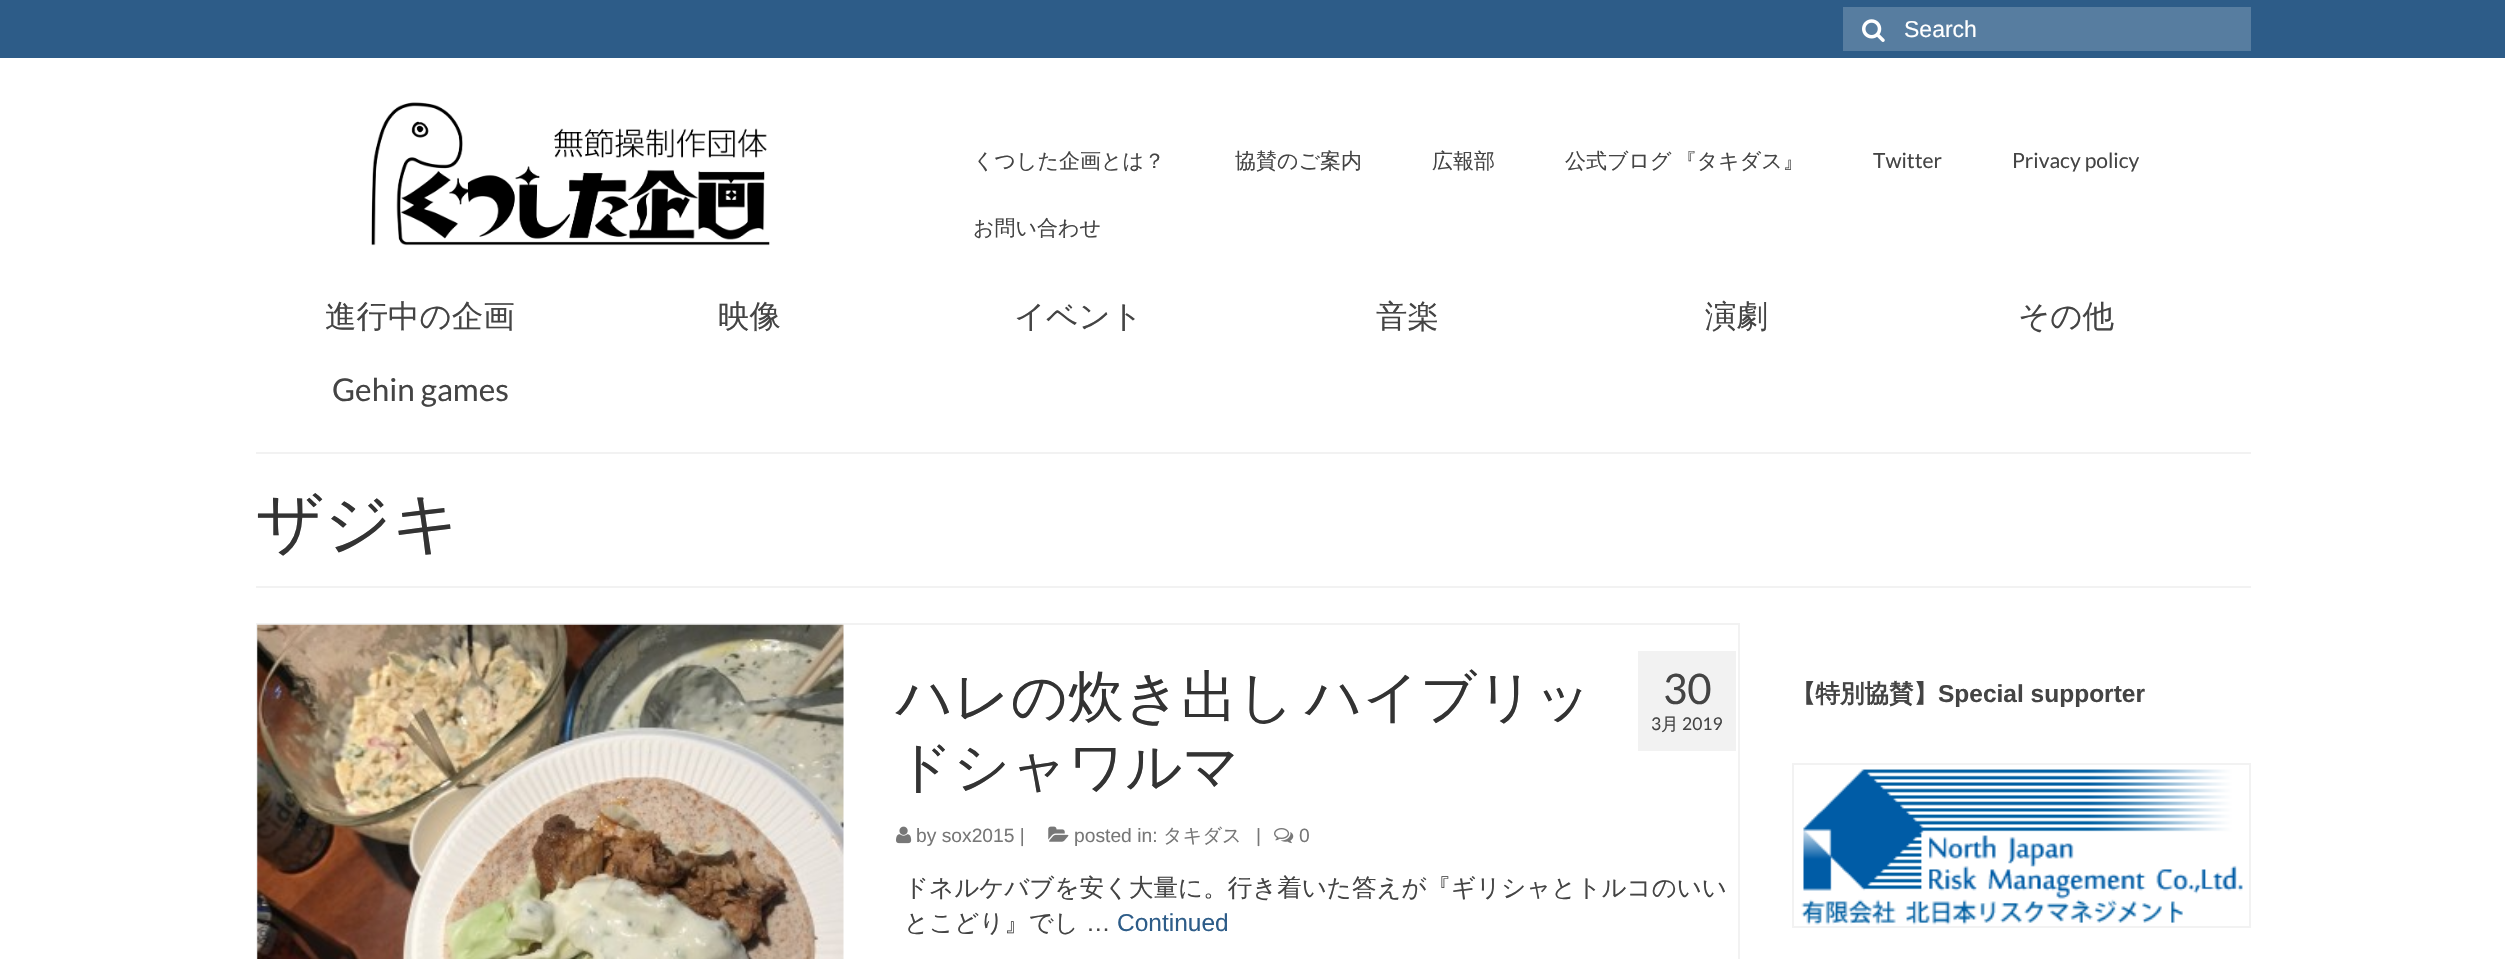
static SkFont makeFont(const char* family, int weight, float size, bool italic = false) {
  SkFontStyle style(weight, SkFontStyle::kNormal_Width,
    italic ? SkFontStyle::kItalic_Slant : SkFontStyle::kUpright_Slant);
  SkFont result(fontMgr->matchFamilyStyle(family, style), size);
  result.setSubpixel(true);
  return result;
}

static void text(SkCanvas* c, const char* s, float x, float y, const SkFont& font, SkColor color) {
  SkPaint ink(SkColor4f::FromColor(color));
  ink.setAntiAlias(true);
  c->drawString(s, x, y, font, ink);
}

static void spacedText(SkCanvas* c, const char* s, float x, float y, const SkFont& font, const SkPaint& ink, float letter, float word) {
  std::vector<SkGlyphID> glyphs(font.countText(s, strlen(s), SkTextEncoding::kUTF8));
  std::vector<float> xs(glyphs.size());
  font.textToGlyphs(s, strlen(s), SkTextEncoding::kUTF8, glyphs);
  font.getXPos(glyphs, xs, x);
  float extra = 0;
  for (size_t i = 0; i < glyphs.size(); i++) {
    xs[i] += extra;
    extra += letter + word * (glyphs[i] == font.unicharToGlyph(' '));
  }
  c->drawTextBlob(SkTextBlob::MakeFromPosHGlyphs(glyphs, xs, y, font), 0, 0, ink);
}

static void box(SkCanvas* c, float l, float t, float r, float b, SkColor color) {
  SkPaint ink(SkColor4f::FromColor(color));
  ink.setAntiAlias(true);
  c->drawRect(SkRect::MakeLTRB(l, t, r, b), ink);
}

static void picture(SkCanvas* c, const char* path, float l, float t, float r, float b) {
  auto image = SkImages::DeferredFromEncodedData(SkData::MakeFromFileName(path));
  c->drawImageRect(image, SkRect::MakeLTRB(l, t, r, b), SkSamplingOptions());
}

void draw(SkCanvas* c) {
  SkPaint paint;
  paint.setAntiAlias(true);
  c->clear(0xffffffff);
  box(c, 0, 0, 2505, 58, 0xff2d5c88);
  box(c, 1843, 7, 2251, 51, 0xff577da0);
  picture(c, "img_01.png", 1862, 19, 1885, 42);
  SkFont face1 = makeFont("Liberation Sans", 400, 23);
  text(c, "Search", 1904, 37, face1, 0xffffffff);
  picture(c, "img_02.png", 371, 102, 770, 246);
  SkFont face2 = makeFont("WenQuanYi Zen Hei", 500, 21);
  text(c, "くつした企画とは？", 973, 168, face2, 0xff444444);
  text(c, "協賛のご案内", 1235, 168, face2, 0xff444444);
  text(c, "広報部", 1432, 168, face2, 0xff444444);
  paint.setColor(0xff444444);
  spacedText(c, "公式ブログ 『タキダス』", 1565, 168, face2, paint, 0, -2);
  SkFont face3 = makeFont("Lato", 400, 21);
  text(c, "Twitter", 1873, 168, face3, 0xff444444);
  text(c, "Privacy policy", 2012, 168, face3, 0xff444444);
  text(c, "お問い合わせ", 973, 235, face2, 0xff444444);
  SkFont face4 = makeFont("WenQuanYi Zen Hei", 500, 31.5f);
  text(c, "進行中の企画", 325, 327, face4, 0xff444444);
  text(c, "映像", 718, 327, face4, 0xff444444);
  text(c, "イベント", 1014, 327, face4, 0xff444444);
  text(c, "音楽", 1376, 327, face4, 0xff444444);
  text(c, "演劇", 1705, 327, face4, 0xff444444);
  text(c, "その他", 2018, 327, face4, 0xff444444);
  SkFont face5 = makeFont("Lato", 400, 31.5f);
  text(c, "Gehin games", 332, 401, face5, 0xff444444);
  box(c, 256, 452, 2251, 454, 0xfff2f2f2);
  box(c, 256, 586, 2251, 588, 0xfff2f2f2);
  SkFont face6 = makeFont("WenQuanYi Zen Hei", 500, 66.5f);
  text(c, "ザジキ", 256, 546, face6, 0xff333333);
  paint.setStyle(SkPaint::kStroke_Style);
  paint.setStrokeWidth(2);
  paint.setColor(0xfff2f2f2);
  c->drawRect(SkRect::MakeLTRB(257, 624, 1739, 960), paint);
  picture(c, "img_03.png", 257, 624, 844, 959);
  SkFont face7 = makeFont("WenQuanYi Zen Hei", 500, 56);
  paint.setStyle(SkPaint::kFill_Style);
  paint.setColor(0xff333333);
  spacedText(c, "ハレの炊き出し ハイブリッ", 896, 716, face7, paint, 0, -6);
  text(c, "ドシャワルマ", 896, 786, face7, 0xff333333);
  picture(c, "img_04.png", 896, 826, 912, 844);
  SkFont face8 = makeFont("Liberation Sans", 400, 19.25f);
  text(c, "by sox2015 |", 916, 842, face8, 0xff777777);
  picture(c, "img_05.png", 1048, 826, 1069, 842);
  text(c, "posted in:", 1074, 842, face8, 0xff777777);
  SkFont face9 = makeFont("WenQuanYi Zen Hei", 500, 19.25f);
  text(c, "タキダス", 1163, 842, face9, 0xff777777);
  text(c, "|", 1256, 842, face8, 0xff777777);
  picture(c, "img_06.png", 1274, 828, 1294, 844);
  text(c, "0", 1299, 842, face8, 0xff777777);
  box(c, 1638, 651, 1736, 751, 0xfff2f2f2);
  SkFont face10 = makeFont("Lato", 400, 42);
  text(c, "30", 1663, 704, face10, 0xff444444);
  SkFont face11 = makeFont("Lato", 400, 17.5f);
  text(c, "3", 1651, 730, face11, 0xff444444);
  SkFont face12 = makeFont("WenQuanYi Zen Hei", 500, 17.5f);
  text(c, "月", 1661, 730, face12, 0xff444444);
  text(c, "2019", 1682, 730, face11, 0xff444444);
  SkFont face13 = makeFont("WenQuanYi Zen Hei", 500, 24.5f);
  text(c, "ドネルケバブを安く大量に。行き着いた答えが『ギリシャとトルコのいい", 904, 896, face13, 0xff444444);
  text(c, "とこどり』でし", 904, 931, face13, 0xff444444);
  SkFont face14 = makeFont("Liberation Sans", 400, 24.5f);
  text(c, "…", 1086, 931, face14, 0xff444444);
  text(c, "Continued", 1117, 931, face14, 0xff2d5c88);
  SkFont face15 = makeFont("WenQuanYi Zen Hei", 700, 24.5f);
  text(c, "【特別協賛】", 1791, 702, face15, 0xff444444);
  SkFont face16 = makeFont("Liberation Sans", 700, 24.5f);
  text(c, "Special supporter", 1938, 702, face16, 0xff444444);
  paint.setStyle(SkPaint::kStroke_Style);
  paint.setColor(0x0d000000);
  c->drawRect(SkRect::MakeLTRB(1793, 764, 2250, 927), paint);
  picture(c, "img_07.png", 1801, 769, 2243, 925);
}
